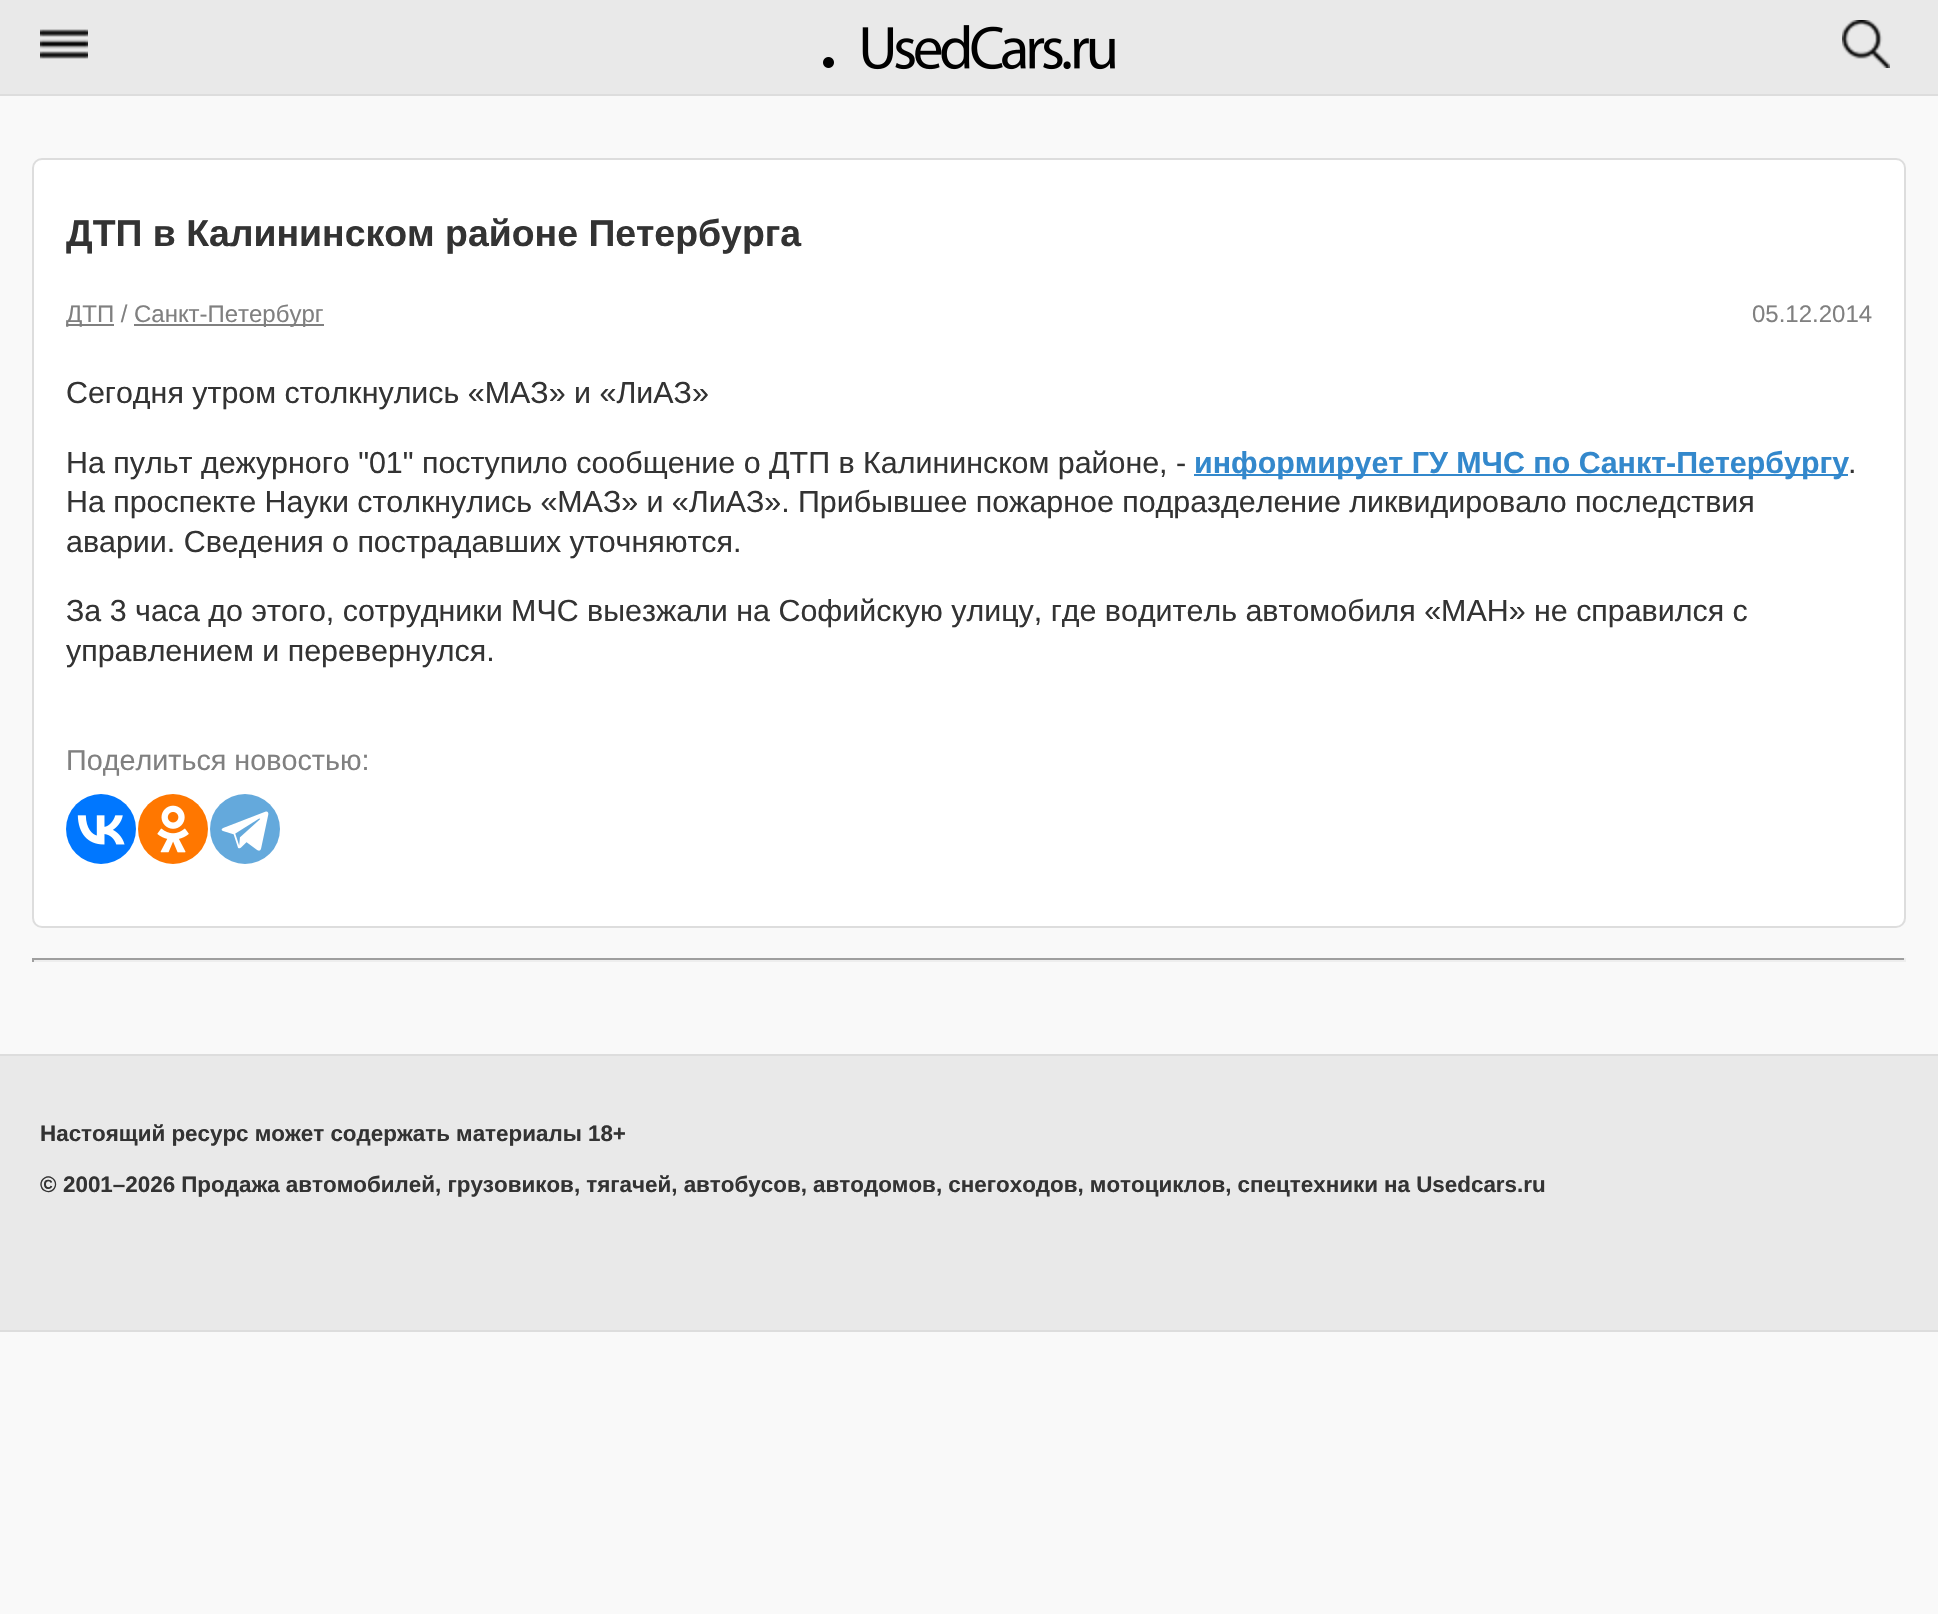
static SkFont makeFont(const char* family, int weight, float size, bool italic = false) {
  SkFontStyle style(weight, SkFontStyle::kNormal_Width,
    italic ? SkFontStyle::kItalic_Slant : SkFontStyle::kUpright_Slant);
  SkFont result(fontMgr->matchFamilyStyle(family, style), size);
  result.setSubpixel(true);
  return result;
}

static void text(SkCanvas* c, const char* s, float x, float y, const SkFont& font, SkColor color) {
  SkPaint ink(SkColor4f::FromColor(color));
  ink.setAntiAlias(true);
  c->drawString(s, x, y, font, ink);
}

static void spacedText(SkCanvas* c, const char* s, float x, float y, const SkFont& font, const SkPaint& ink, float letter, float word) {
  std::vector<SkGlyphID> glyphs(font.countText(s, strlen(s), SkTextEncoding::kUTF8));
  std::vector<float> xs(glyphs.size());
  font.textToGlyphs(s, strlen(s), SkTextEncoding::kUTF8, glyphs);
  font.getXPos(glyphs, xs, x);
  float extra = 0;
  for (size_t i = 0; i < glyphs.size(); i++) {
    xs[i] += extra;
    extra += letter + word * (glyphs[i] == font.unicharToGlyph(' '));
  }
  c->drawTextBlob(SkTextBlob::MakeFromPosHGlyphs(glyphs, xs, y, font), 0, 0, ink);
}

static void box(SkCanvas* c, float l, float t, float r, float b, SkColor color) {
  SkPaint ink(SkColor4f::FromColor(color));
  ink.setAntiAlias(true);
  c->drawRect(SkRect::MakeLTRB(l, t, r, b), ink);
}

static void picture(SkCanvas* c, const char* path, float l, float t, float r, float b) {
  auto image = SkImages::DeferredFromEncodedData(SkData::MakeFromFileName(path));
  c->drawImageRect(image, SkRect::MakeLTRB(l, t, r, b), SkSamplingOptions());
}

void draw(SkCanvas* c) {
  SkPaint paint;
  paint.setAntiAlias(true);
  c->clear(0xfff9f9f9);
  box(c, 0, 0, 1938, 94, 0xffe9e9e9);
  box(c, 0, 94, 1938, 96, 0xffdddddd);
  picture(c, "img_01.png", 40, 29, 88, 59);
  picture(c, "img_02.png", 823, 25, 1115, 70);
  picture(c, "img_03.png", 1842, 20, 1890, 68);
  paint.setColor(0xffffffff);
  c->drawRoundRect(SkRect::MakeLTRB(33, 159, 1905, 927), 9, 9, paint);
  paint.setStyle(SkPaint::kStroke_Style);
  paint.setStrokeWidth(2);
  paint.setColor(0xffdddddd);
  c->drawRoundRect(SkRect::MakeLTRB(33, 159, 1905, 927), 9, 9, paint);
  SkFont face1 = makeFont("Liberation Sans", 700, 37.4f);
  text(c, "ДТП в Калининском районе Петербурга", 66, 246, face1, 0xff333333);
  box(c, 66, 324, 114, 326, 0xff808080);
  SkFont face2 = makeFont("Liberation Sans", 400, 24);
  text(c, "ДТП /", 66, 322, face2, 0xff808080);
  box(c, 134, 324, 324, 326, 0xff808080);
  text(c, "Санкт-Петербург", 134, 322, face2, 0xff808080);
  text(c, "05.12.2014", 1752, 322, face2, 0xff808080);
  SkFont face3 = makeFont("Liberation Sans", 400, 30.4f);
  text(c, "Сегодня утром столкнулись «МАЗ» и «ЛиАЗ»", 66, 403, face3, 0xff333333);
  text(c, "На пульт дежурного \"01\" поступило сообщение о ДТП в Калининском районе, -", 66, 473, face3, 0xff333333);
  box(c, 1194, 474, 1848, 476, 0xff3388cc);
  SkFont face4 = makeFont("Liberation Sans", 700, 30.4f);
  text(c, "информирует ГУ МЧС по Санкт-Петербургу", 1194, 473, face4, 0xff3388cc);
  text(c, ".", 1848, 473, face3, 0xff333333);
  paint.setStyle(SkPaint::kFill_Style);
  paint.setColor(0xff333333);
  spacedText(c, "На проспекте Науки столкнулись «МАЗ» и «ЛиАЗ». Прибывшее пожарное подразделение ликвидировало последствия", 66, 512, face3, paint, 0, -0.1f);
  text(c, "аварии. Сведения о пострадавших уточняются.", 66, 552, face3, 0xff333333);
  text(c, "За 3 часа до этого, сотрудники МЧС выезжали на Софийскую улицу, где водитель автомобиля «МАН» не справился с", 66, 621, face3, 0xff333333);
  text(c, "управлением и перевернулся.", 66, 661, face3, 0xff333333);
  SkFont face5 = makeFont("Liberation Sans", 400, 28.75f);
  text(c, "Поделиться новостью:", 66, 770, face5, 0xff808080);
  paint.setColor(0xff0077ff);
  c->drawCircle(101, 829, 35, paint);
  picture(c, "img_04.png", 77, 815, 125, 845);
  paint.setColor(0xffff7700);
  c->drawCircle(173, 829, 35, paint);
  picture(c, "img_05.png", 157, 805, 189, 853);
  paint.setColor(0xff64a9dc);
  c->drawCircle(245, 829, 35, paint);
  picture(c, "img_06.png", 221, 811, 269, 851);
  box(c, 32, 958, 1906, 960, 0xff9f9f9f);
  box(c, 1904, 958, 1906, 962, 0xffeeeeee);
  box(c, 32, 960, 1906, 962, 0xffeeeeee);
  box(c, 32, 958, 34, 962, 0xff9f9f9f);
  box(c, 0, 1056, 1938, 1330, 0xffe9e9e9);
  box(c, 0, 1054, 1938, 1056, 0xffdddddd);
  box(c, 0, 1330, 1938, 1332, 0xffdddddd);
  SkFont face6 = makeFont("Liberation Sans", 700, 22.4f);
  paint.setColor(0xff333333);
  spacedText(c, "Настоящий ресурс может содержать материалы 18+", 40, 1141, face6, paint, 0, -0.1f);
  text(c, "©", 40, 1192, face6, 0xff333333);
  spacedText(c, "2001–2026 Продажа автомобилей, грузовиков, тягачей, автобусов, автодомов, снегоходов, мотоциклов, спецтехники на Usedcars.ru", 63, 1192, face6, paint, 0, -0.1f);
}
